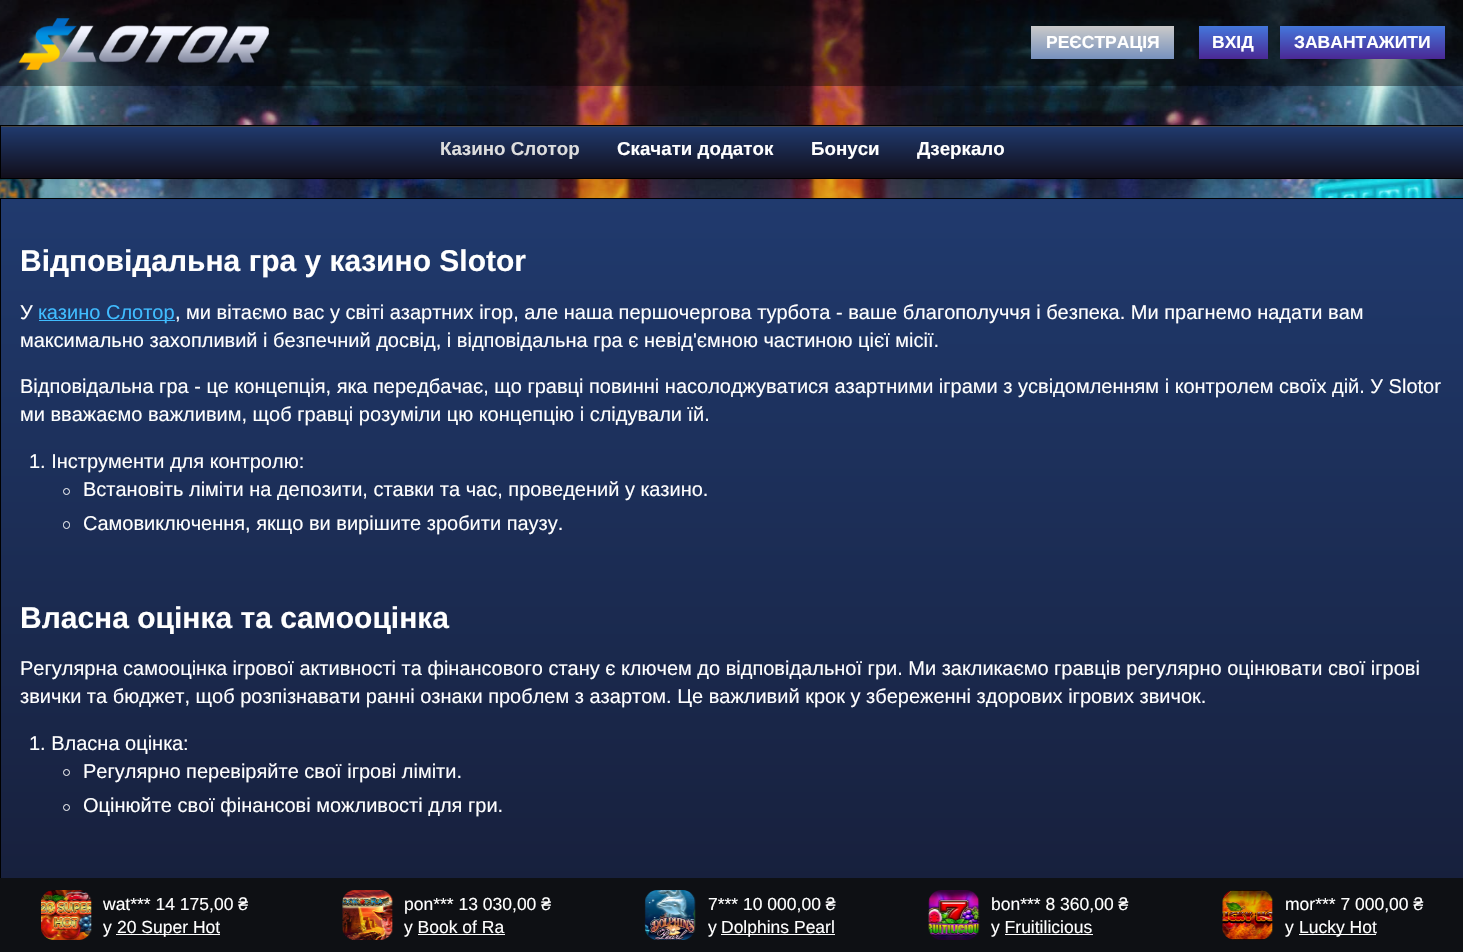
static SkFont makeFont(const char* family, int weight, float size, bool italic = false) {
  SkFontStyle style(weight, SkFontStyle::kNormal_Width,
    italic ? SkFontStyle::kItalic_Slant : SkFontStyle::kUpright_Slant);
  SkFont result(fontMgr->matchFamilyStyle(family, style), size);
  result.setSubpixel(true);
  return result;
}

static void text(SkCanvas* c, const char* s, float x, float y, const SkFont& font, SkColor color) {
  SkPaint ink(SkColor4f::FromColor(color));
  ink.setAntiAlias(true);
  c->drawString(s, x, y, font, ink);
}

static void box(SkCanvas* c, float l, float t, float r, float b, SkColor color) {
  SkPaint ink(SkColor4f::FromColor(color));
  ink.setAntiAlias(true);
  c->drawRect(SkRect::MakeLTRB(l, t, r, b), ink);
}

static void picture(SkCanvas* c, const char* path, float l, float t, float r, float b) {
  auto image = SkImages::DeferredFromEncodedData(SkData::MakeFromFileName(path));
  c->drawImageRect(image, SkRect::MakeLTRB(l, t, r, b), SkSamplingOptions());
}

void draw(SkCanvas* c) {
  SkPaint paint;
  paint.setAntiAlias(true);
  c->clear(0xffffffff);
  picture(c, "img_01.png", 0, 0, 1463, 198);
  box(c, 0, 0, 1463, 86, 0x66000000);
  picture(c, "img_02.png", 18, 18, 269, 70);
  {
    const SkColor colors[] = {0xff7791bd, 0xffc9c9c9};
    const float stops[] = {0, 0.99f};
    const SkPoint ends[] = {{1103, 59}, {1103, 26}};
    paint.setShader(SkGradientShader::MakeLinear(ends, colors, stops, 2, SkTileMode::kClamp));
    paint.setAlpha(255);
  }
  c->drawRect(SkRect::MakeLTRB(1031, 26, 1174, 59), paint);
  SkFont face1 = makeFont("Liberation Sans", 700, 17.5f);
  text(c, "РЕЄСТРАЦІЯ", 1046, 48, face1, 0xffffffff);
  {
    const SkColor colors[] = {0xff4a2894, 0xff4476db};
    const float stops[] = {0, 0.99f};
    const SkPoint ends[] = {{1233, 59}, {1233, 26}};
    paint.setShader(SkGradientShader::MakeLinear(ends, colors, stops, 2, SkTileMode::kClamp));
    paint.setAlpha(255);
  }
  c->drawRect(SkRect::MakeLTRB(1199, 26, 1268, 59), paint);
  text(c, "ВХІД", 1212, 48, face1, 0xffffffff);
  {
    const SkColor colors[] = {0xff4a2894, 0xff4476db};
    const float stops[] = {0, 0.99f};
    const SkPoint ends[] = {{1363, 59}, {1363, 26}};
    paint.setShader(SkGradientShader::MakeLinear(ends, colors, stops, 2, SkTileMode::kClamp));
    paint.setAlpha(255);
  }
  c->drawRect(SkRect::MakeLTRB(1280, 26, 1445, 59), paint);
  text(c, "ЗАВАНТАЖИТИ", 1294, 48, face1, 0xffffffff);
  {
    const SkColor colors[] = {0xff110e1a, 0xff203a6e};
    const float stops[] = {0, 0.99f};
    const SkPoint ends[] = {{732, 178}, {732, 126}};
    paint.setShader(SkGradientShader::MakeLinear(ends, colors, stops, 2, SkTileMode::kClamp));
    paint.setAlpha(255);
  }
  c->drawRect(SkRect::MakeLTRB(1, 127, 1463, 178), paint);
  box(c, 1, 126, 1463, 127, 0xff474646);
  paint.setStyle(SkPaint::kStroke_Style);
  paint.setStrokeWidth(1);
  paint.setShader(nullptr);
  paint.setColor(0xff000000);
  c->drawRect(SkRect::MakeLTRB(0.5f, 125.5f, 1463.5f, 178.5f), paint);
  SkFont face2 = makeFont("Liberation Sans", 700, 18.75f);
  text(c, "Казино Слотор", 440, 155, face2, 0xffdddddd);
  text(c, "Скачати додаток", 617, 155, face2, 0xffffffff);
  text(c, "Бонуси", 811, 155, face2, 0xffffffff);
  text(c, "Дзеркало", 917, 155, face2, 0xffffffff);
  paint.setStyle(SkPaint::kFill_Style);
  {
    const SkColor colors[] = {0xff110e1a, 0xff203a6e};
    const float stops[] = {0, 1};
    const SkPoint ends[] = {{732, 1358}, {732, 199}};
    paint.setShader(SkGradientShader::MakeLinear(ends, colors, stops, 2, SkTileMode::kClamp));
    paint.setAlpha(255);
  }
  c->drawRect(SkRect::MakeLTRB(1, 199, 1463, 878), paint);
  paint.setStyle(SkPaint::kStroke_Style);
  paint.setShader(nullptr);
  paint.setColor(0xff000000);
  c->drawRect(SkRect::MakeLTRB(0.5f, 198.5f, 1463.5f, 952.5f), paint);
  SkFont face3 = makeFont("Liberation Sans", 700, 30);
  text(c, "Відповідальна гра у казино Slotor", 20, 271, face3, 0xffffffff);
  SkFont face4 = makeFont("Liberation Sans", 400, 20);
  text(c, "У", 20, 319, face4, 0xffffffff);
  box(c, 39, 320, 175, 321, 0xff40bcff);
  text(c, "казино Слотор", 38, 319, face4, 0xff40bcff);
  text(c, ", ми вітаємо вас у світі азартних ігор, але наша першочергова турбота - ваше благополуччя і безпека. Ми прагнемо надати вам", 175, 319, face4, 0xffffffff);
  text(c, "максимально захопливий і безпечний досвід, і відповідальна гра є невід'ємною частиною цієї місії.", 20, 347, face4, 0xffffffff);
  text(c, "Відповідальна гра - це концепція, яка передбачає, що гравці повинні насолоджуватися азартними іграми з усвідомленням і контролем своїх дій. У Slotor", 20, 393, face4, 0xffffffff);
  text(c, "ми вважаємо важливим, щоб гравці розуміли цю концепцію і слідували їй.", 20, 421, face4, 0xffffffff);
  text(c, "1. Інструменти для контролю:", 29, 468, face4, 0xffffffff);
  paint.setColor(0xffffffff);
  c->drawCircle(66.5f, 491.5f, 3, paint);
  text(c, "Встановіть ліміти на депозити, ставки та час, проведений у казино.", 83, 496, face4, 0xffffffff);
  c->drawRoundRect(SkRect::MakeLTRB(63.5f, 521.5f, 69.5f, 528.5f), 3, 3, paint);
  text(c, "Самовиключення, якщо ви вирішите зробити паузу.", 83, 530, face4, 0xffffffff);
  text(c, "Власна оцінка та самооцінка", 20, 628, face3, 0xffffffff);
  text(c, "Регулярна самооцінка ігрової активності та фінансового стану є ключем до відповідальної гри. Ми закликаємо гравців регулярно оцінювати свої ігрові", 20, 675, face4, 0xffffffff);
  text(c, "звички та бюджет, щоб розпізнавати ранні ознаки проблем з азартом. Це важливий крок у збереженні здорових ігрових звичок.", 20, 703, face4, 0xffffffff);
  text(c, "1. Власна оцінка:", 29, 750, face4, 0xffffffff);
  c->drawCircle(66.5f, 772.5f, 3, paint);
  text(c, "Регулярно перевіряйте свої ігрові ліміти.", 83, 778, face4, 0xffffffff);
  c->drawCircle(66.5f, 807.5f, 3, paint);
  text(c, "Оцінюйте свої фінансові можливості для гри.", 83, 812, face4, 0xffffffff);
  box(c, 0, 878, 1463, 952, 0xff0e1014);
  picture(c, "img_03.png", 41, 890, 92, 940);
  SkFont face5 = makeFont("Liberation Sans", 400, 17.5f);
  text(c, "wat*** 14 175,00 ₴", 103, 910, face5, 0xffffffff);
  text(c, "у", 103, 933, face5, 0xffffffff);
  box(c, 116, 934, 220, 935, 0xffffffff);
  text(c, "20 Super Hot", 117, 933, face5, 0xffffffff);
  picture(c, "img_04.png", 342, 890, 393, 940);
  text(c, "pon*** 13 030,00 ₴", 404, 910, face5, 0xffffffff);
  text(c, "у Book of Ra", 404, 933, face5, 0xffffffff);
  box(c, 418, 934, 505, 935, 0xffffffff);
  picture(c, "img_05.png", 644, 890, 696, 940);
  text(c, "7*** 10 000,00 ₴", 708, 910, face5, 0xffffffff);
  text(c, "у", 708, 933, face5, 0xffffffff);
  box(c, 721, 934, 835, 935, 0xffffffff);
  text(c, "Dolphins Pearl", 721, 933, face5, 0xffffffff);
  picture(c, "img_06.png", 928, 890, 980, 940);
  text(c, "bon*** 8 360,00 ₴", 991, 910, face5, 0xffffffff);
  text(c, "у Fruitilicious", 991, 933, face5, 0xffffffff);
  box(c, 1005, 934, 1093, 935, 0xffffffff);
  picture(c, "img_07.png", 1222, 890, 1273, 940);
  text(c, "mor*** 7 000,00 ₴", 1285, 910, face5, 0xffffffff);
  text(c, "у", 1285, 933, face5, 0xffffffff);
  box(c, 1299, 934, 1376, 935, 0xffffffff);
  text(c, "Lucky Hot", 1299, 933, face5, 0xffffffff);
}
